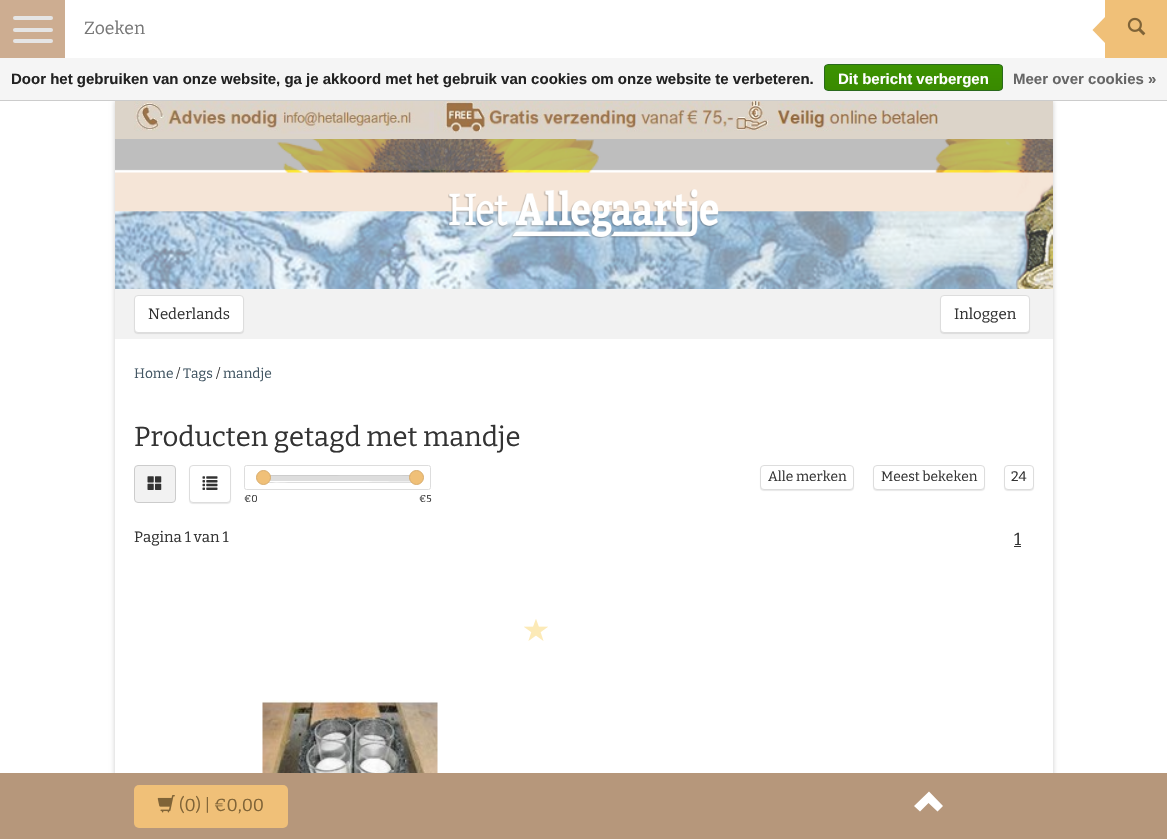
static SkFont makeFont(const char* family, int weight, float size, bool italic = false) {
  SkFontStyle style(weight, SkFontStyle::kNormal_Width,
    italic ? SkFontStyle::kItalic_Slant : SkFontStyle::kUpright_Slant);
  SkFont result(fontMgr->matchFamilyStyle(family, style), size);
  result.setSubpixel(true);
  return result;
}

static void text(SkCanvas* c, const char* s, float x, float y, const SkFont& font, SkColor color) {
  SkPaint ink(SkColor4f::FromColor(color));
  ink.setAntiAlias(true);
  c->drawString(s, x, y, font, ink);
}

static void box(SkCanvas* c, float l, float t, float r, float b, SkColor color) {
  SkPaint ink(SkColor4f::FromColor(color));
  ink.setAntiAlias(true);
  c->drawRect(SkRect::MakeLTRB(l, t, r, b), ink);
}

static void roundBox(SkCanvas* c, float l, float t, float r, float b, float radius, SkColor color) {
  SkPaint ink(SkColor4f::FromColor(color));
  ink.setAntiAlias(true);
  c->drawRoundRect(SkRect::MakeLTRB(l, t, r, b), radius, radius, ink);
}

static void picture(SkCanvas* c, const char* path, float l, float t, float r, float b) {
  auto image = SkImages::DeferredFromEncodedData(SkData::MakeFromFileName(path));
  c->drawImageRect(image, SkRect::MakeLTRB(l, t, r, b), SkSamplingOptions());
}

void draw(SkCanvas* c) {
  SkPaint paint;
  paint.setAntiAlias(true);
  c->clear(0xffffffff);
  paint.setColor(0x33000000);
  paint.setMaskFilter(SkMaskFilter::MakeBlur(kNormal_SkBlurStyle, 2.5f));
  c->drawRect(SkRect::MakeLTRB(115, 101, 1053, 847), paint);
  paint.setMaskFilter(nullptr);
  picture(c, "img_01.png", 115, 139, 1053, 289);
  box(c, 0, 0, 65, 58, 0xffcdad91);
  roundBox(c, 13, 16, 53, 20, 2, 0xffe5e5e5);
  roundBox(c, 13, 28, 53, 32, 2, 0xffe5e5e5);
  roundBox(c, 13, 39, 53, 43, 2, 0xffe5e5e5);
  SkFont face1 = makeFont("Bitter", 400, 17.5f);
  text(c, "Zoeken", 84, 34, face1, 0xff777777);
  box(c, 1105, 0, 1167, 58, 0xfff0c078);
  paint.setColor(0xfff0c078);
  c->drawPath(SkPathBuilder().moveTo(1106, 16).lineTo(1106, 44).lineTo(1092.5f, 30).close().detach(), paint);
  picture(c, "img_02.png", 1127, 17, 1146, 36);
  picture(c, "img_03.png", 448, 189, 719, 238);
  box(c, 115, 289, 1053, 339, 0xfff2f2f2);
  paint.setColor(0x1a221919);
  paint.setMaskFilter(SkMaskFilter::MakeBlur(kNormal_SkBlurStyle, 0.5f));
  c->drawRoundRect(SkRect::MakeLTRB(134, 296, 244, 334), 4, 4, paint);
  paint.setMaskFilter(nullptr);
  paint.setColor(0xffffffff);
  c->drawRoundRect(SkRect::MakeLTRB(134.5f, 295.5f, 243.5f, 332.5f), 3.5f, 3.5f, paint);
  paint.setStyle(SkPaint::kStroke_Style);
  paint.setStrokeWidth(1);
  paint.setColor(0xffdddddd);
  c->drawRoundRect(SkRect::MakeLTRB(134.5f, 295.5f, 243.5f, 332.5f), 3.5f, 3.5f, paint);
  SkFont face2 = makeFont("Bitter", 400, 15);
  text(c, "Nederlands", 148, 319, face2, 0xff333333);
  paint.setStyle(SkPaint::kFill_Style);
  paint.setColor(0x1a221919);
  paint.setMaskFilter(SkMaskFilter::MakeBlur(kNormal_SkBlurStyle, 0.5f));
  c->drawRoundRect(SkRect::MakeLTRB(940, 296, 1030, 334), 4, 4, paint);
  paint.setMaskFilter(nullptr);
  paint.setColor(0xffffffff);
  c->drawRoundRect(SkRect::MakeLTRB(940.5f, 295.5f, 1029.5f, 332.5f), 3.5f, 3.5f, paint);
  paint.setStyle(SkPaint::kStroke_Style);
  paint.setColor(0xffdddddd);
  c->drawRoundRect(SkRect::MakeLTRB(940.5f, 295.5f, 1029.5f, 332.5f), 3.5f, 3.5f, paint);
  text(c, "Inloggen", 954, 319, face2, 0xff333333);
  box(c, 0, 58, 1167, 100, 0xfff5f5f5);
  box(c, 0, 100, 1167, 101, 0xffcccccc);
  SkFont face3 = makeFont("Liberation Sans", 700, 15);
  text(c, "Door het gebruiken van onze website, ga je akkoord met het gebruik van cookies om onze website te verbeteren.", 11, 84, face3, 0xff222222);
  c->save();
  c->clipPath(SkPathBuilder().moveTo(828, 64).lineTo(999, 64).cubicTo(1001, 64, 1003, 66, 1003, 68).lineTo(1003, 87).cubicTo(1003, 89, 1001, 91, 999, 91).lineTo(828, 91).cubicTo(826, 91, 824, 89, 824, 87).lineTo(824, 68).cubicTo(824, 66, 826, 64, 828, 64).close().detach(), true);
  paint.setStyle(SkPaint::kFill_Style);
  {
    const SkColor colors[] = {0xff3c9300, 0xff398a00};
    const float stops[] = {0, 1};
    const SkPoint ends[] = {{913, 65}, {913, 90}};
    paint.setShader(SkGradientShader::MakeLinear(ends, colors, stops, 2, SkTileMode::kClamp));
    paint.setAlpha(255);
  }
  c->drawRect(SkRect::MakeLTRB(824, 65, 1003, 90), paint);
  c->restore();
  paint.setStyle(SkPaint::kStroke_Style);
  paint.setShader(nullptr);
  paint.setColor(0xff29691d);
  c->drawRoundRect(SkRect::MakeLTRB(824.5f, 64.5f, 1002.5f, 90.5f), 3.5f, 3.5f, paint);
  text(c, "Dit bericht verbergen", 838, 84, face3, 0xffffffff);
  text(c, "Meer over cookies »", 1013, 84, face3, 0xff666666);
  box(c, 115, 101, 1053, 139, 0xffdcd4c9);
  picture(c, "img_04.png", 134, 101, 434, 134);
  picture(c, "img_05.png", 434, 101, 734, 133);
  picture(c, "img_06.png", 734, 101, 939, 131);
  box(c, 115, 339, 1053, 773, 0xffffffff);
  SkFont face4 = makeFont("Bitter", 400, 13.75f);
  text(c, "Home", 134, 378, face4, 0xff425663);
  text(c, "/", 176, 378, face4, 0xff333333);
  text(c, "Tags", 183, 378, face4, 0xff425663);
  text(c, "/", 216, 378, face4, 0xff333333);
  text(c, "mandje", 223, 378, face4, 0xff425663);
  SkFont face5 = makeFont("Bitter", 400, 27.5f);
  text(c, "Producten getagd met mandje", 134, 446, face5, 0xff333333);
  paint.setStyle(SkPaint::kFill_Style);
  paint.setColor(0x1a221919);
  paint.setMaskFilter(SkMaskFilter::MakeBlur(kNormal_SkBlurStyle, 0.5f));
  c->drawRoundRect(SkRect::MakeLTRB(760, 466, 854, 491), 4, 4, paint);
  paint.setMaskFilter(nullptr);
  paint.setColor(0xffffffff);
  c->drawRoundRect(SkRect::MakeLTRB(760.5f, 465.5f, 853.5f, 489.5f), 3.5f, 3.5f, paint);
  paint.setStyle(SkPaint::kStroke_Style);
  paint.setColor(0xffdddddd);
  c->drawRoundRect(SkRect::MakeLTRB(760.5f, 465.5f, 853.5f, 489.5f), 3.5f, 3.5f, paint);
  text(c, "Alle merken", 768, 481, face4, 0xff333333);
  paint.setStyle(SkPaint::kFill_Style);
  paint.setColor(0x1a221919);
  paint.setMaskFilter(SkMaskFilter::MakeBlur(kNormal_SkBlurStyle, 0.5f));
  c->drawRoundRect(SkRect::MakeLTRB(873, 466, 985, 491), 4, 4, paint);
  paint.setMaskFilter(nullptr);
  paint.setColor(0xffffffff);
  c->drawRoundRect(SkRect::MakeLTRB(873.5f, 465.5f, 984.5f, 489.5f), 3.5f, 3.5f, paint);
  paint.setStyle(SkPaint::kStroke_Style);
  paint.setColor(0xffdddddd);
  c->drawRoundRect(SkRect::MakeLTRB(873.5f, 465.5f, 984.5f, 489.5f), 3.5f, 3.5f, paint);
  text(c, "Meest bekeken", 881, 481, face4, 0xff333333);
  paint.setStyle(SkPaint::kFill_Style);
  paint.setColor(0x1a221919);
  paint.setMaskFilter(SkMaskFilter::MakeBlur(kNormal_SkBlurStyle, 0.5f));
  c->drawRoundRect(SkRect::MakeLTRB(1004, 466, 1034, 491), 4, 4, paint);
  paint.setMaskFilter(nullptr);
  paint.setColor(0xffffffff);
  c->drawRoundRect(SkRect::MakeLTRB(1004.5f, 465.5f, 1033.5f, 489.5f), 3.5f, 3.5f, paint);
  paint.setStyle(SkPaint::kStroke_Style);
  paint.setColor(0xffdddddd);
  c->drawRoundRect(SkRect::MakeLTRB(1004.5f, 465.5f, 1033.5f, 489.5f), 3.5f, 3.5f, paint);
  text(c, "24", 1011, 481, face4, 0xff333333);
  paint.setStyle(SkPaint::kFill_Style);
  paint.setColor(0xfff2f2f2);
  c->drawRoundRect(SkRect::MakeLTRB(134.5f, 465.5f, 175.5f, 502.5f), 3.5f, 3.5f, paint);
  paint.setStyle(SkPaint::kStroke_Style);
  paint.setColor(0xffcccccc);
  c->drawRoundRect(SkRect::MakeLTRB(134.5f, 465.5f, 175.5f, 502.5f), 3.5f, 3.5f, paint);
  picture(c, "img_07.png", 147, 476, 162, 490);
  paint.setStyle(SkPaint::kFill_Style);
  paint.setColor(0x1a221919);
  paint.setMaskFilter(SkMaskFilter::MakeBlur(kNormal_SkBlurStyle, 0.5f));
  c->drawRoundRect(SkRect::MakeLTRB(189, 466, 231, 504), 4, 4, paint);
  paint.setMaskFilter(nullptr);
  paint.setColor(0xffffffff);
  c->drawRoundRect(SkRect::MakeLTRB(189.5f, 465.5f, 230.5f, 502.5f), 3.5f, 3.5f, paint);
  paint.setStyle(SkPaint::kStroke_Style);
  paint.setColor(0xffdddddd);
  c->drawRoundRect(SkRect::MakeLTRB(189.5f, 465.5f, 230.5f, 502.5f), 3.5f, 3.5f, paint);
  picture(c, "img_08.png", 202, 476, 218, 490);
  c->drawRoundRect(SkRect::MakeLTRB(244.5f, 465.5f, 430.5f, 489.5f), 2, 2, paint);
  box(c, 265, 475, 418, 483, 0xffdddddd);
  paint.setStyle(SkPaint::kFill_Style);
  paint.setColor(0xffcccccc);
  c->drawPath(SkPathBuilder().moveTo(269, 475).cubicTo(267, 475, 265, 477, 265, 479).lineTo(265, 478).cubicTo(266, 476, 268, 476, 269, 476).lineTo(317, 476).cubicTo(327, 476, 415, 475, 417, 477).lineTo(418, 479).lineTo(418, 477).lineTo(414, 475).close().detach(), paint);
  paint.setColor(0xffffffff);
  c->drawPath(SkPathBuilder().moveTo(265, 479).cubicTo(265, 484, 281, 482, 293, 482).lineTo(414, 482).lineTo(418, 480).lineTo(418, 479).lineTo(417, 479).cubicTo(417, 483, 406, 481, 342, 481).lineTo(269, 481).cubicTo(267, 481, 265, 481, 265, 479).close().detach(), paint);
  paint.setColor(0xfff0c078);
  c->drawCircle(263.5f, 477.5f, 7, paint);
  paint.setStyle(SkPaint::kStroke_Style);
  paint.setColor(0xffd8ac6c);
  c->drawCircle(263.5f, 477.5f, 7, paint);
  paint.setStyle(SkPaint::kFill_Style);
  paint.setColor(0xfff0c078);
  c->drawCircle(416.5f, 477.5f, 7, paint);
  paint.setStyle(SkPaint::kStroke_Style);
  paint.setColor(0xffd8ac6c);
  c->drawCircle(416.5f, 477.5f, 7, paint);
  SkFont face6 = makeFont("Bitter", 400, 10);
  text(c, "€0", 244, 502, face6, 0xff333333);
  text(c, "€5", 419, 502, face6, 0xff333333);
  text(c, "Pagina 1 van 1", 134, 542, face2, 0xff333333);
  text(c, "1", 1014, 545, face1, 0xff333333);
  box(c, 1014, 546, 1021, 547, 0xff333333);
  picture(c, "img_09.png", 524, 619, 548, 641);
  picture(c, "img_10.png", 262, 700, 438, 773);
  box(c, 0, 773, 1167, 839, 0xffb6977b);
  roundBox(c, 134, 785, 288, 828, 5, 0xfff0c078);
  picture(c, "img_11.png", 157, 795, 175, 813);
  text(c, "(0) | €0,00", 179, 811, face1, 0xff806437);
  paint.setStyle(SkPaint::kFill_Style);
  paint.setColor(0xffffffff);
  c->drawPath(SkPathBuilder().moveTo(914, 806).lineTo(920, 811.5f).lineTo(928.5f, 803).lineTo(937.5f, 811.5f).lineTo(943, 806).lineTo(929, 791.5f).close().detach(), paint);
}
